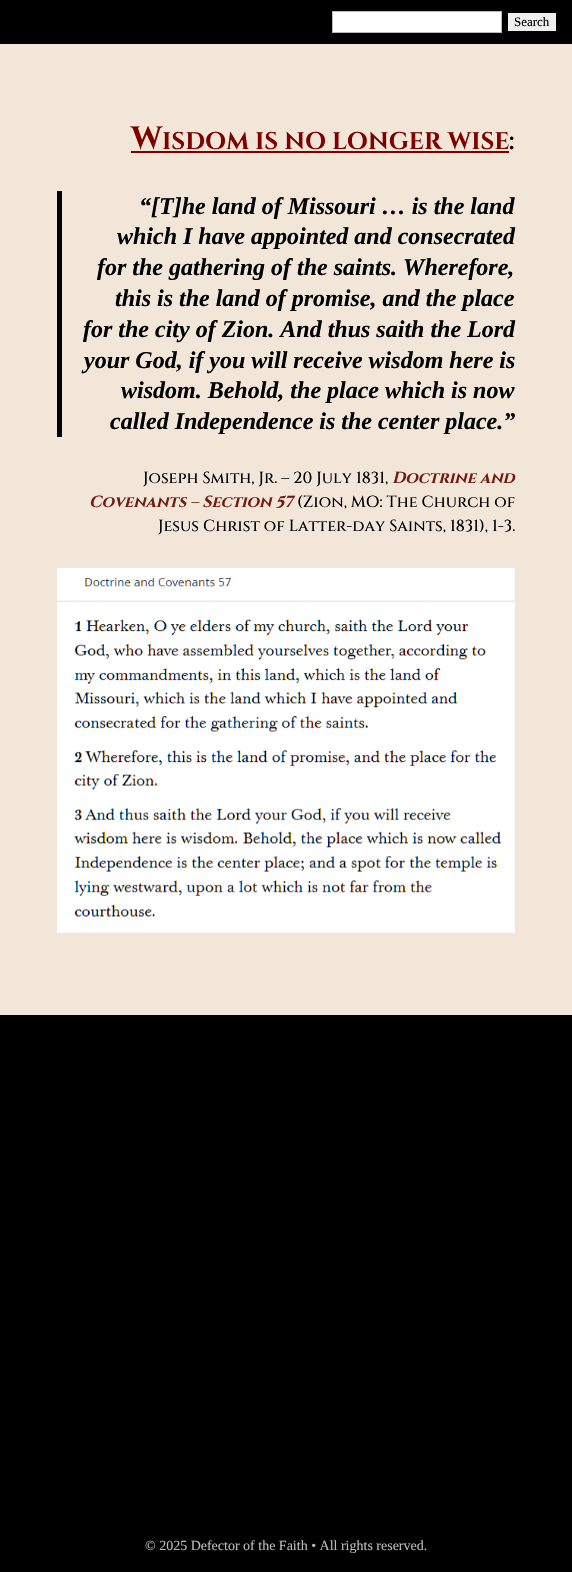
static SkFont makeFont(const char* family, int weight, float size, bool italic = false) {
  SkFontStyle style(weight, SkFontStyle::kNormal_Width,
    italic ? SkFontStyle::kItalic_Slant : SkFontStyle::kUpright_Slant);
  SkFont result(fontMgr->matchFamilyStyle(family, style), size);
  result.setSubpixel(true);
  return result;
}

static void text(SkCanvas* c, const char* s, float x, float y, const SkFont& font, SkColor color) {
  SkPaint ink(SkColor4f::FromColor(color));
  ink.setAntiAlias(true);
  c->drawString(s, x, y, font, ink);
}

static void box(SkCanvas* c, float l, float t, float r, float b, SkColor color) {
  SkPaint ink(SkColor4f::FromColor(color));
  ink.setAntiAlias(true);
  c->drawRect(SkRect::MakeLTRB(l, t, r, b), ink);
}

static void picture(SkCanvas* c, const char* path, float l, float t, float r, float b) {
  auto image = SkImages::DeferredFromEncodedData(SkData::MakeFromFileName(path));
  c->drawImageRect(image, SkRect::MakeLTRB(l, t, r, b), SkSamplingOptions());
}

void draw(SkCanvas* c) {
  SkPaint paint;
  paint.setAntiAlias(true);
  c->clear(0xff000000);
  paint.setColor(0xffffffff);
  c->drawRect(SkRect::MakeLTRB(332.5f, 11.5f, 501.5f, 32.5f), paint);
  paint.setStyle(SkPaint::kStroke_Style);
  paint.setStrokeWidth(1);
  paint.setColor(0xffbbbbbb);
  c->drawRect(SkRect::MakeLTRB(332.5f, 11.5f, 501.5f, 32.5f), paint);
  box(c, 508, 13, 556, 31, 0xffefefef);
  SkFont face1 = makeFont("Liberation Serif", 400, 13);
  text(c, "Search", 514, 26, face1, 0xff000000);
  box(c, 0, 44, 572, 1015, 0xfff2e6d9);
  SkFont face2 = makeFont("Cinzel", 700, 32);
  text(c, "W", 131, 149, face2, 0xff800000);
  SkFont face3 = makeFont("Cinzel", 700, 24);
  text(c, "ISDOM IS NO LONGER WISE", 162, 149, face3, 0xff800000);
  text(c, ":", 509, 149, face3, 0xff000000);
  box(c, 131, 151, 509, 153, 0xff800000);
  box(c, 57, 191, 62, 437, 0xff000000);
  SkFont face4 = makeFont("Liberation Serif", 700, 24, true);
  text(c, "“[T]he land of Missouri … is the land", 139, 214, face4, 0xff000000);
  text(c, "which I have appointed and consecrated", 117, 244, face4, 0xff000000);
  text(c, "for the gathering of the saints. Wherefore,", 97, 275, face4, 0xff000000);
  text(c, "this is the land of promise, and the place", 115, 306, face4, 0xff000000);
  text(c, "for the city of Zion. And thus saith the Lord", 83, 337, face4, 0xff000000);
  text(c, "your God, if you will receive wisdom here is", 84, 368, face4, 0xff000000);
  text(c, "wisdom. Behold, the place which is now", 121, 398, face4, 0xff000000);
  text(c, "called Independence is the center place.”", 110, 429, face4, 0xff000000);
  SkFont face5 = makeFont("Cinzel", 500, 16);
  text(c, "Joseph Smith, Jr. – 20 July 1831,", 143, 483, face5, 0xff000000);
  SkFont face6 = makeFont("Cinzel", 700, 16, true);
  text(c, "Doctrine and", 392, 483, face6, 0xff721910);
  text(c, "Covenants – Section 57", 89, 507, face6, 0xff721910);
  text(c, "(Zion, MO: The Church of", 297, 507, face5, 0xff000000);
  text(c, "Jesus Christ of Latter-day Saints, 1831), 1-3.", 158, 531, face5, 0xff000000);
  picture(c, "img_01.png", 57, 568, 515, 933);
  SkFont face7 = makeFont("Liberation Serif", 400, 14);
  text(c, "© 2025 Defector of the Faith • All rights reserved.", 145, 1550, face7, 0xffbbbbbb);
}
